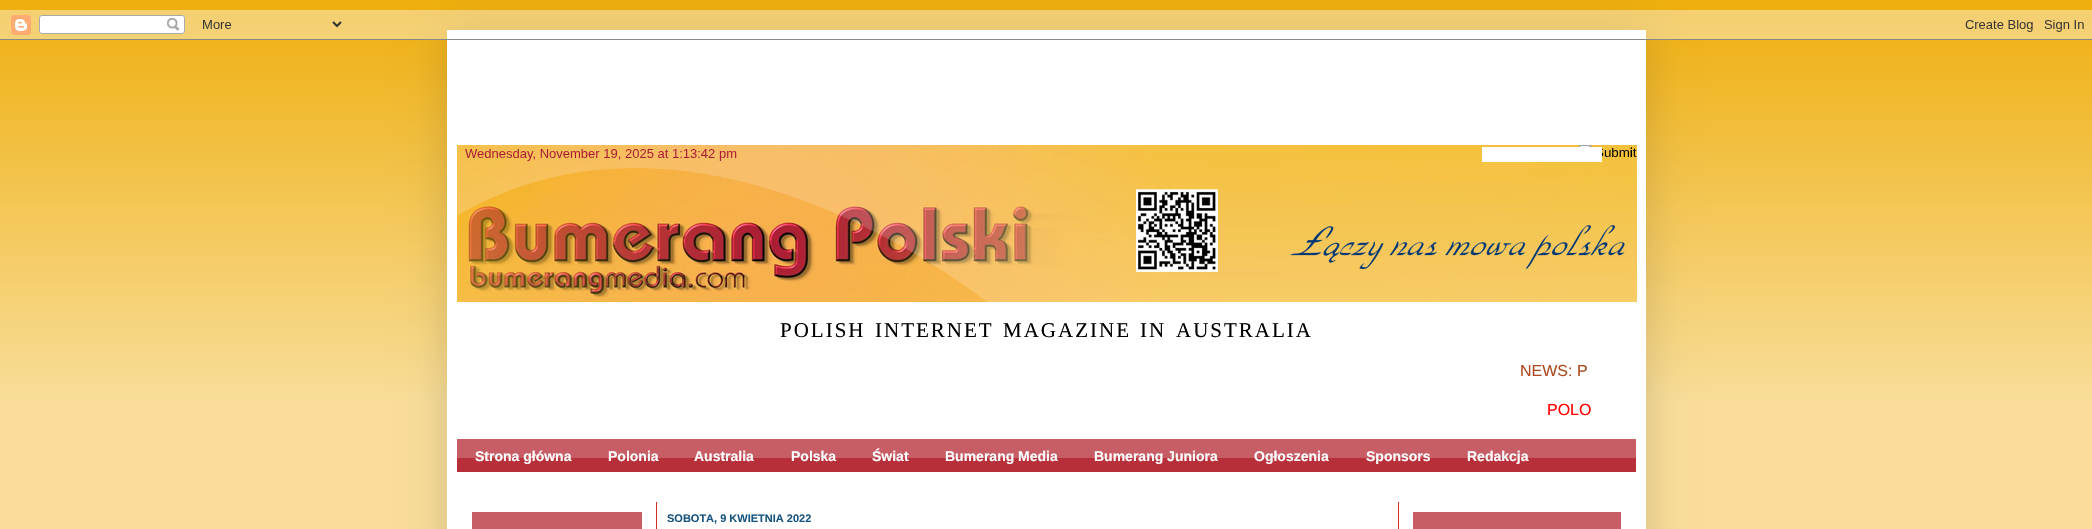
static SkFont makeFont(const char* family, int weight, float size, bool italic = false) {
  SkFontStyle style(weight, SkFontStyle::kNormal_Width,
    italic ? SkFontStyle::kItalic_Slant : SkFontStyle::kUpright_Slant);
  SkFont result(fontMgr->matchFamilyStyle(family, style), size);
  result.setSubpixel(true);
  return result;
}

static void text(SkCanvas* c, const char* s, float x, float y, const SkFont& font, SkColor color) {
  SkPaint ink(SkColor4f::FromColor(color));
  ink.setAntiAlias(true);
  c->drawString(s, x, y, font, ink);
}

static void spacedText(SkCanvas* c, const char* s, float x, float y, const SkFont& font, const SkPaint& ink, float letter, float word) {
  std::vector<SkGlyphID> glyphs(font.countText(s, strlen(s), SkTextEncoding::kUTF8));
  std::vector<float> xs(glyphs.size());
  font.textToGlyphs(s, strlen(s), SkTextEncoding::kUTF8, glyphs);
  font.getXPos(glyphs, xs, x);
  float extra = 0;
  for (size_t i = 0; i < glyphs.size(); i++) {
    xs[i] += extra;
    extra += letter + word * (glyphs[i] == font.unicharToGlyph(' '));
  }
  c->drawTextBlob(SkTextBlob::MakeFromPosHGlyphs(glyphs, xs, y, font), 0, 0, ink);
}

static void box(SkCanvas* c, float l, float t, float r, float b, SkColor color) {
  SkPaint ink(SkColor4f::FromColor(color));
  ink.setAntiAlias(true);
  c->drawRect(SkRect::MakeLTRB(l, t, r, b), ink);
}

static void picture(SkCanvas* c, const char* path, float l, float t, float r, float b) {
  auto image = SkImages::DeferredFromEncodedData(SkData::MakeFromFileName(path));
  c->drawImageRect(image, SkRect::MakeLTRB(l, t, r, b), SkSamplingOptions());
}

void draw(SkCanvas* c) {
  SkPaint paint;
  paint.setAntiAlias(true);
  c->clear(0xfff9dd99);
  box(c, 0, 0, 2092, 400, 0xffeeaa00);
  picture(c, "img_01.png", 0, 0, 2092, 400);
  paint.setColor(0x26000000);
  paint.setMaskFilter(SkMaskFilter::MakeBlur(kNormal_SkBlurStyle, 20));
  c->drawRect(SkRect::MakeLTRB(447, 30, 1646, 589), paint);
  paint.setMaskFilter(nullptr);
  box(c, 447, 30, 1646, 529, 0xffffffff);
  picture(c, "img_02.png", 0, 10, 2092, 40);
  picture(c, "img_03.png", 457, 145, 1637, 302);
  picture(c, "img_04.png", 465, 149, 737, 161);
  picture(c, "img_05.png", 1579, 145, 1637, 157);
  box(c, 1482, 147, 1602, 162, 0xffffffff);
  SkFont face1 = makeFont("Liberation Sans", 400, 13);
  text(c, "i", 1630, 157, face1, 0xff000000);
  SkFont face2 = makeFont("Liberation Serif", 400, 21);
  paint.setColor(0xff000000);
  spacedText(c, "POLISH", 780, 337, face2, paint, 2, 0);
  spacedText(c, "INTERNET", 875, 337, face2, paint, 2, 0);
  spacedText(c, "MAGAZINE", 1003, 337, face2, paint, 2, 0);
  spacedText(c, "IN", 1140, 337, face2, paint, 2, 0);
  spacedText(c, "AUSTRALIA", 1176, 337, face2, paint, 2, 0);
  SkFont face3 = makeFont("Liberation Sans", 400, 16);
  text(c, "NEWS: P", 1520, 376, face3, 0xffad4a20);
  text(c, "POLO", 1547, 415, face3, 0xffff0000);
  picture(c, "img_06.png", 457, 439, 1636, 472);
  SkFont face4 = makeFont("Liberation Sans", 700, 14);
  text(c, "Strona główna", 475, 461, face4, 0xffffffff);
  text(c, "Polonia", 608, 461, face4, 0xffffffff);
  text(c, "Australia", 694, 461, face4, 0xffffffff);
  text(c, "Polska", 791, 461, face4, 0xffffffff);
  text(c, "Świat", 872, 461, face4, 0xffffffff);
  text(c, "Bumerang Media", 945, 461, face4, 0xffffffff);
  text(c, "Bumerang Juniora", 1094, 461, face4, 0xffffffff);
  text(c, "Ogłoszenia", 1254, 461, face4, 0xffffffff);
  text(c, "Sponsors", 1366, 461, face4, 0xffffffff);
  text(c, "Redakcja", 1467, 461, face4, 0xffffffff);
  box(c, 656, 502, 657, 529, 0xffd52c1f);
  box(c, 472, 512, 642, 529, 0xffc75e65);
  SkFont face5 = makeFont("Liberation Sans", 700, 11);
  text(c, "SOBOTA, 9 KWIETNIA 2022", 667, 522, face5, 0xff195580);
  box(c, 1413, 512, 1621, 529, 0xffc75e65);
  box(c, 1398, 502, 1399, 529, 0xffd52c1f);
}
